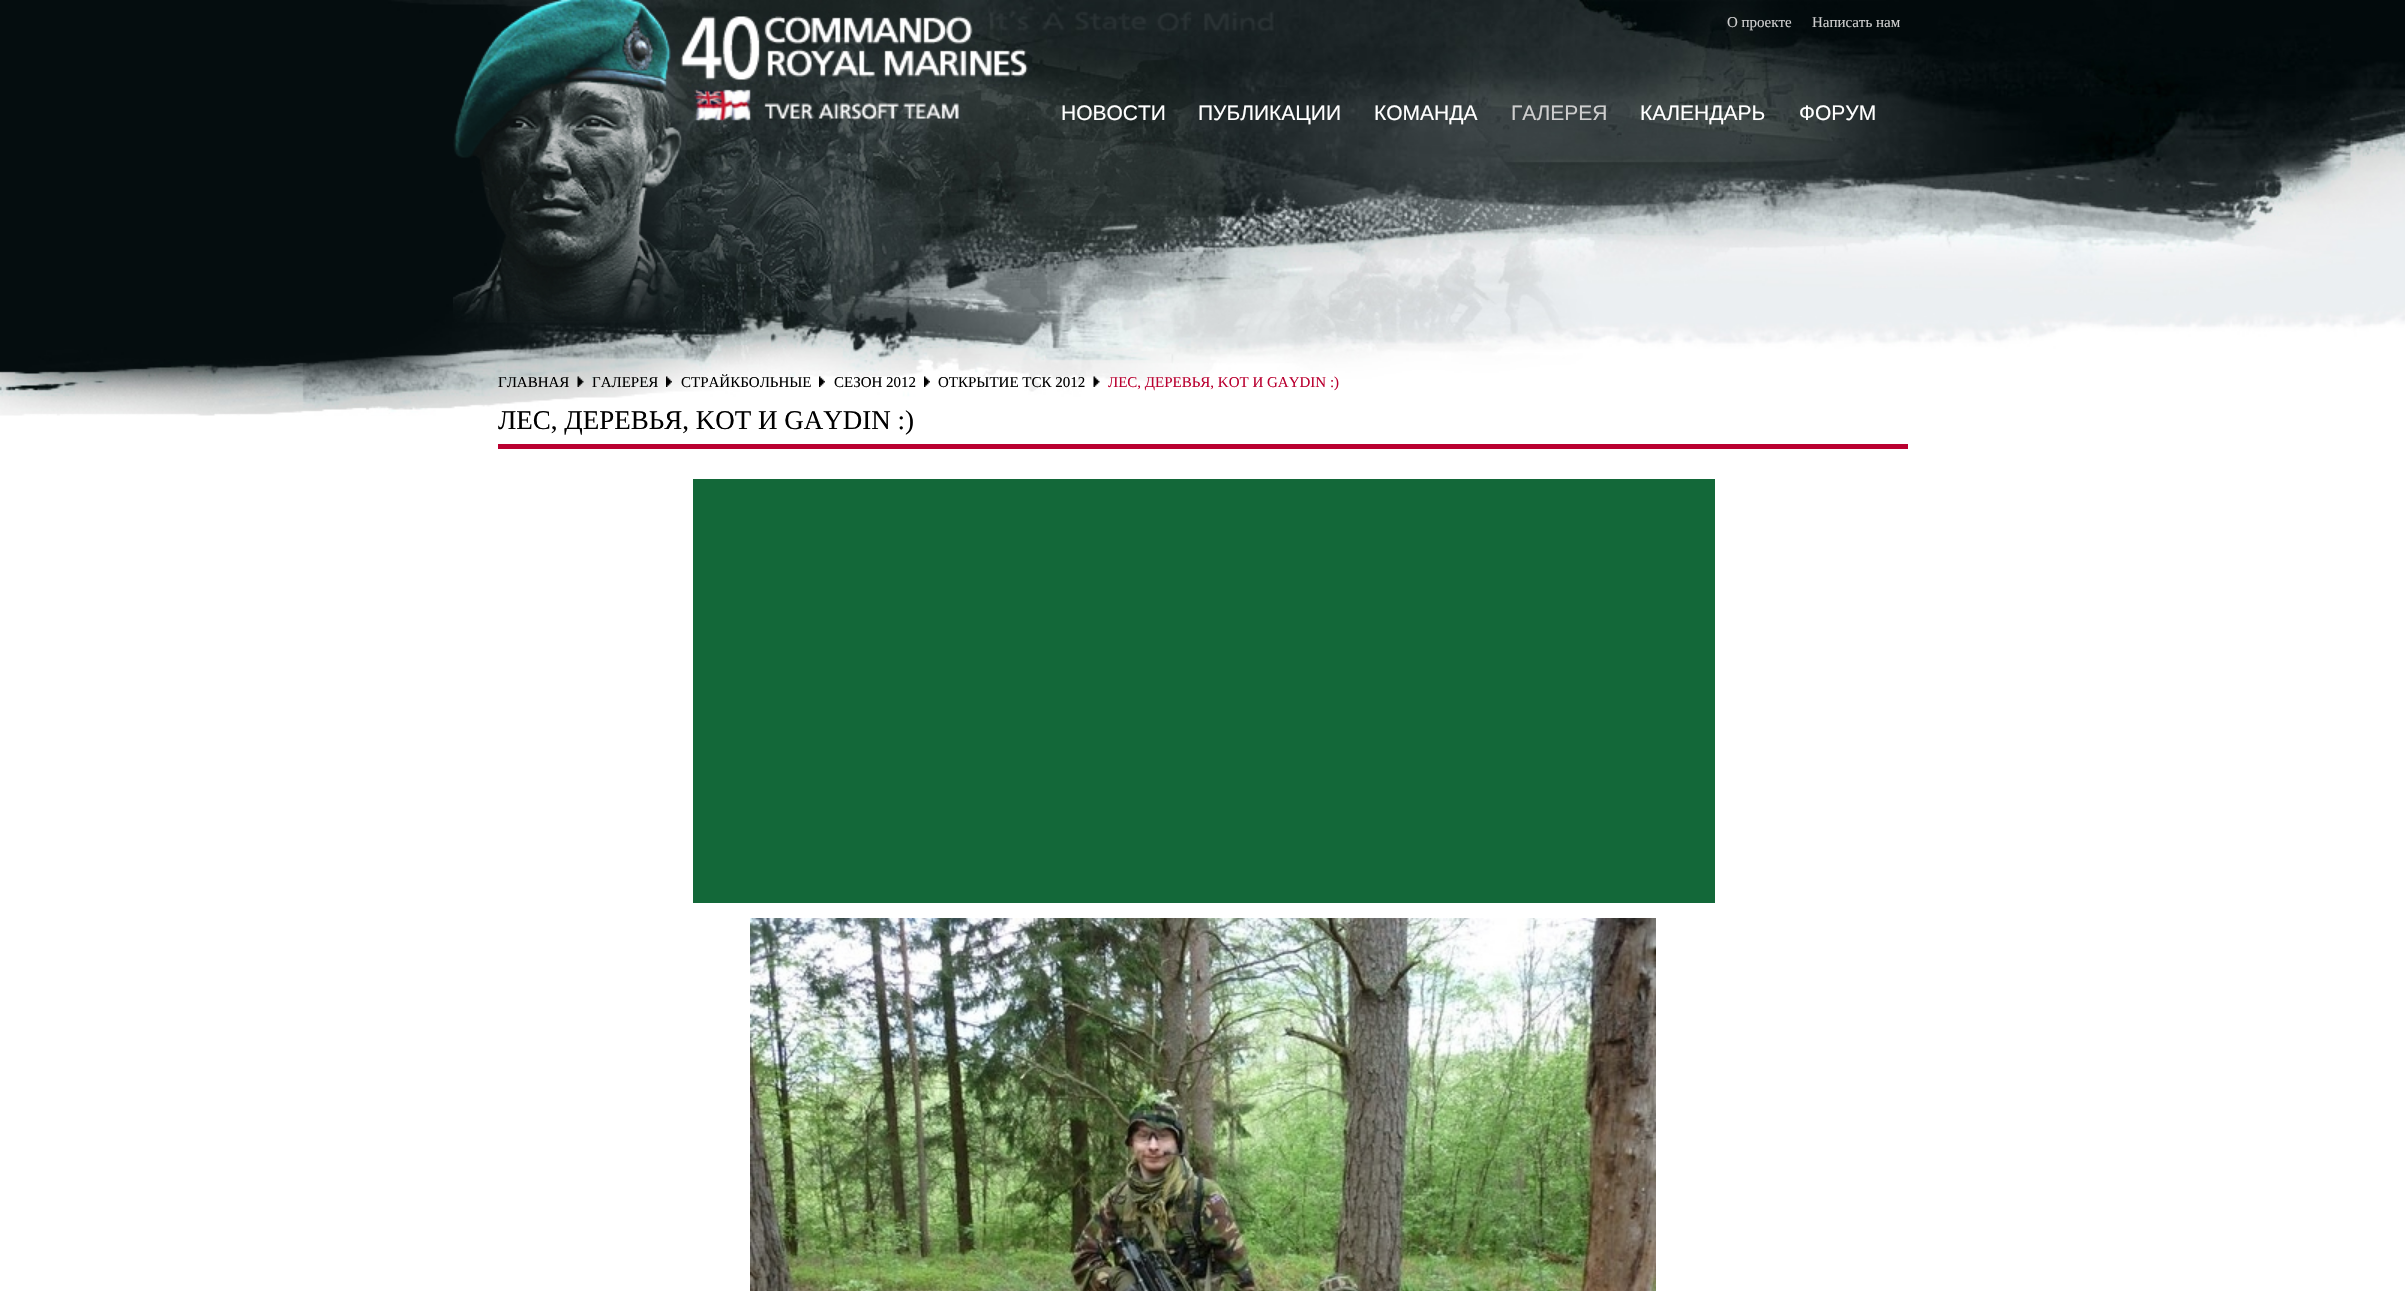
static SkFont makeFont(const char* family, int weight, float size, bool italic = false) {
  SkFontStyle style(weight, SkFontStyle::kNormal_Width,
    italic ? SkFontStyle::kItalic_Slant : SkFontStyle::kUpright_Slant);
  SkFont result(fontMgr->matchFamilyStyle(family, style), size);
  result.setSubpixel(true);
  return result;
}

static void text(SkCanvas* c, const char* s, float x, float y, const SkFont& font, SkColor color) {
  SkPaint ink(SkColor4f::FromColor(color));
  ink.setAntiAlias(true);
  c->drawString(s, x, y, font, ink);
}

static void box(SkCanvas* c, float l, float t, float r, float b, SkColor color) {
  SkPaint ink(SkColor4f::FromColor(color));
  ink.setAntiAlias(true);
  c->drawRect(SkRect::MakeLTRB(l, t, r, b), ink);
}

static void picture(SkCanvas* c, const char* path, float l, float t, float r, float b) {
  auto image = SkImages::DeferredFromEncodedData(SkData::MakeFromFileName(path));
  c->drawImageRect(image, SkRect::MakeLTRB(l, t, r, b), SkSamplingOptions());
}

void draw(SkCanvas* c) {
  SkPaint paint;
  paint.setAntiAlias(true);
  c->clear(0xffffffff);
  picture(c, "img_01.png", 0, 0, 2405, 416);
  picture(c, "img_02.png", 453, 0, 684, 323);
  SkFont face1 = makeFont("Liberation Serif", 400, 15);
  text(c, "О проекте", 1727, 27, face1, 0xffcecece);
  text(c, "Написать нам", 1812, 27, face1, 0xffcecece);
  SkFont face2 = makeFont("Liberation Sans", 400, 21);
  text(c, "НОВОСТИ", 1061, 120, face2, 0xffffffff);
  text(c, "ПУБЛИКАЦИИ", 1198, 120, face2, 0xffffffff);
  text(c, "КОМАНДА", 1374, 120, face2, 0xffffffff);
  text(c, "ГАЛЕРЕЯ", 1511, 120, face2, 0xffcecece);
  text(c, "КАЛЕНДАРЬ", 1640, 120, face2, 0xffffffff);
  text(c, "ФОРУМ", 1799, 120, face2, 0xffffffff);
  text(c, "ГЛАВНАЯ", 498, 387, face1, 0xff000000);
  picture(c, "img_03.png", 577, 376, 584, 387);
  text(c, "ГАЛЕРЕЯ", 592, 387, face1, 0xff000000);
  picture(c, "img_04.png", 666, 376, 672, 387);
  text(c, "СТРАЙКБОЛЬНЫЕ", 681, 387, face1, 0xff000000);
  picture(c, "img_05.png", 819, 376, 825, 387);
  text(c, "СЕЗОН 2012", 834, 387, face1, 0xff000000);
  picture(c, "img_06.png", 924, 376, 930, 387);
  text(c, "ОТКРЫТИЕ ТСК 2012", 938, 387, face1, 0xff000000);
  picture(c, "img_07.png", 1093, 376, 1100, 387);
  text(c, "ЛЕС, ДЕРЕВЬЯ, KOT И GAYDIN :)", 1108, 387, face1, 0xffba0030);
  box(c, 498, 444, 1908, 449, 0xffba0030);
  SkFont face3 = makeFont("Liberation Serif", 400, 27);
  text(c, "ЛЕС, ДЕРЕВЬЯ, KOT И GAYDIN :)", 498, 429, face3, 0xff000000);
  box(c, 693, 479, 1715, 903, 0xff136839);
  picture(c, "img_08.png", 750, 918, 1656, 1291);
}
